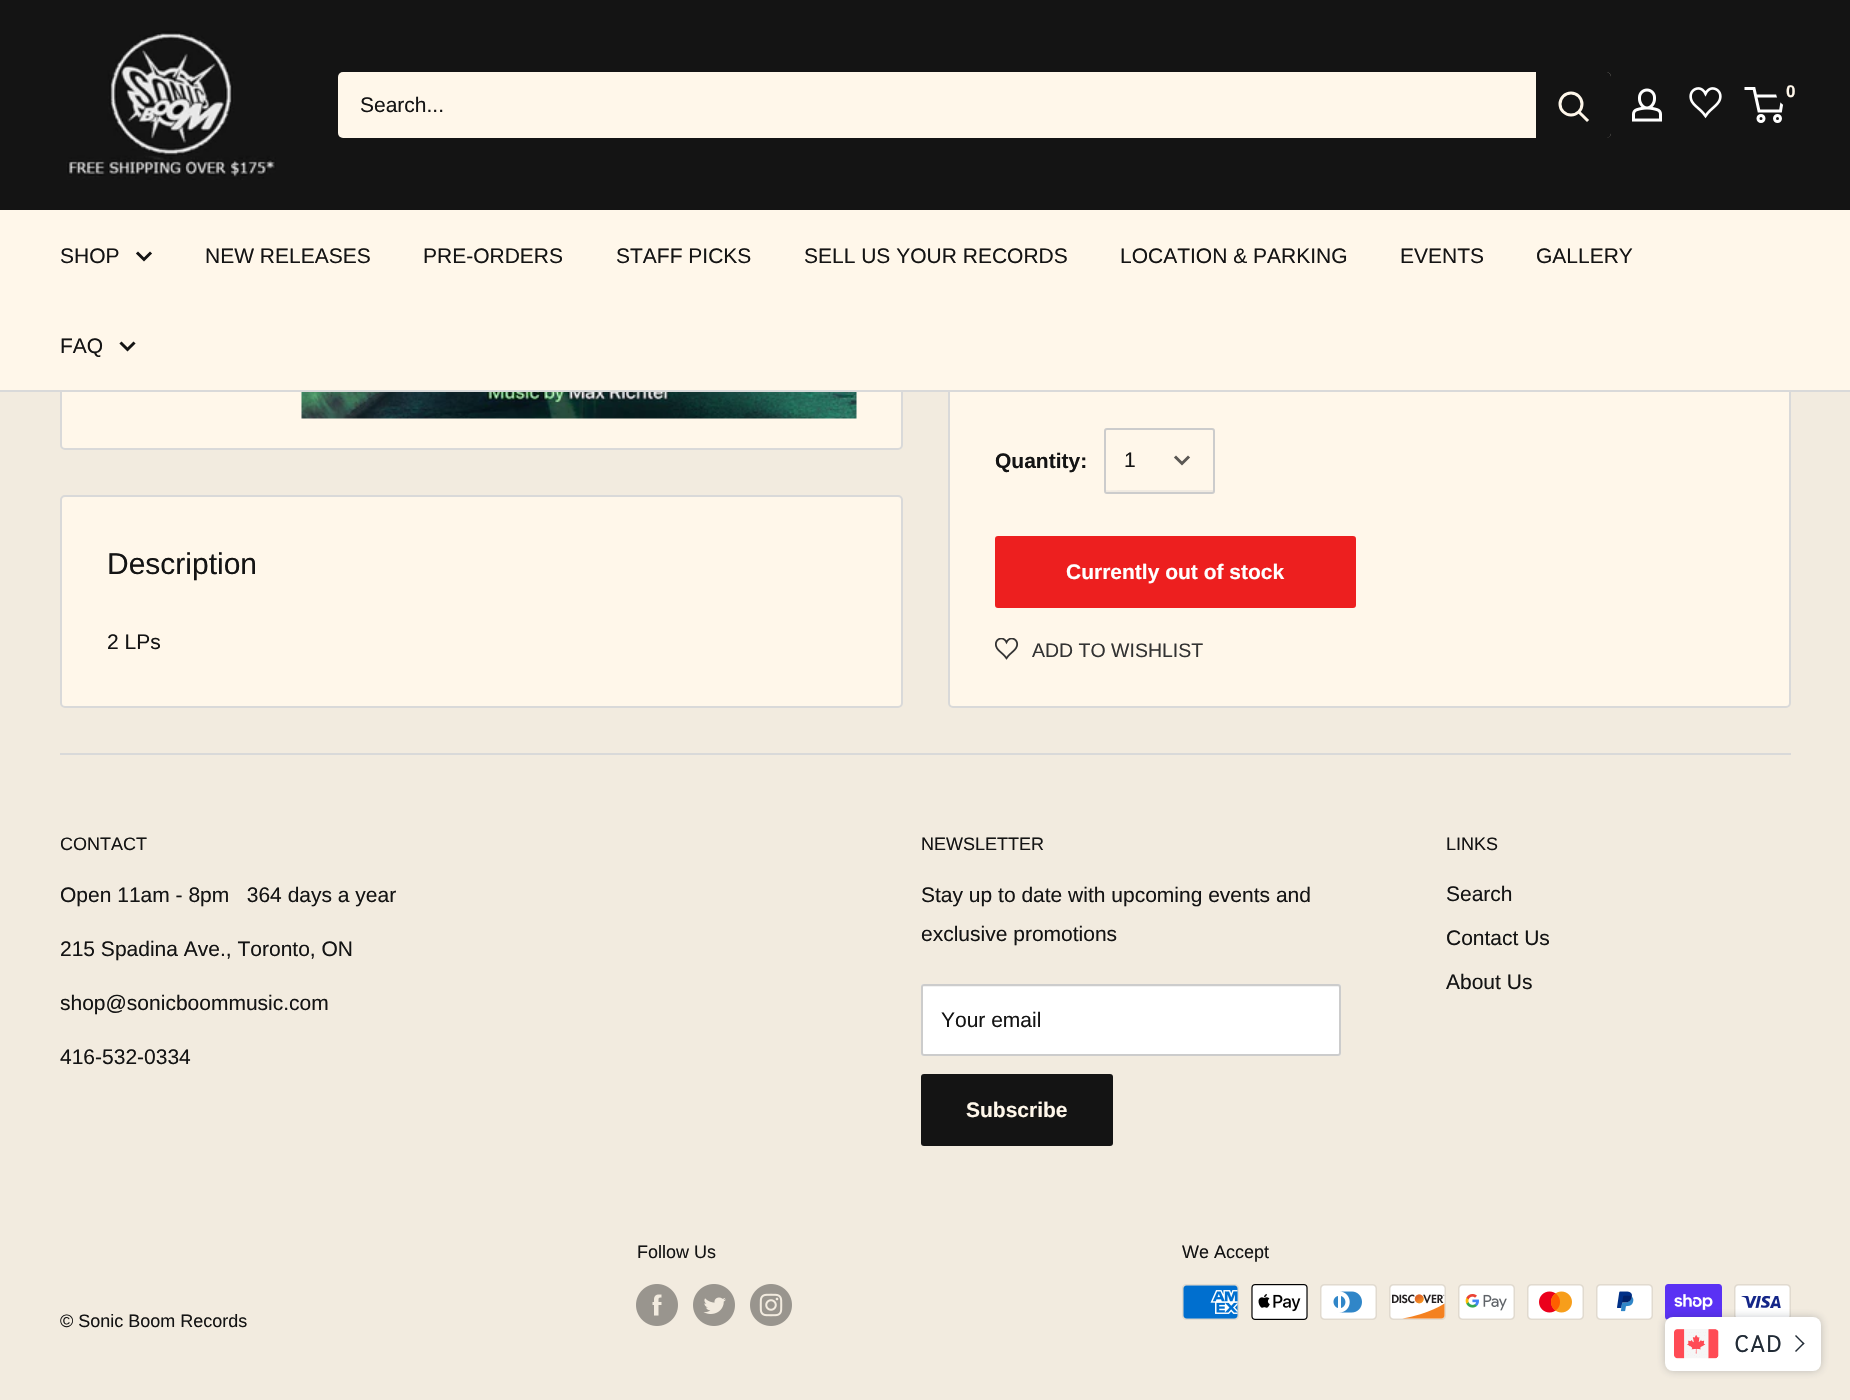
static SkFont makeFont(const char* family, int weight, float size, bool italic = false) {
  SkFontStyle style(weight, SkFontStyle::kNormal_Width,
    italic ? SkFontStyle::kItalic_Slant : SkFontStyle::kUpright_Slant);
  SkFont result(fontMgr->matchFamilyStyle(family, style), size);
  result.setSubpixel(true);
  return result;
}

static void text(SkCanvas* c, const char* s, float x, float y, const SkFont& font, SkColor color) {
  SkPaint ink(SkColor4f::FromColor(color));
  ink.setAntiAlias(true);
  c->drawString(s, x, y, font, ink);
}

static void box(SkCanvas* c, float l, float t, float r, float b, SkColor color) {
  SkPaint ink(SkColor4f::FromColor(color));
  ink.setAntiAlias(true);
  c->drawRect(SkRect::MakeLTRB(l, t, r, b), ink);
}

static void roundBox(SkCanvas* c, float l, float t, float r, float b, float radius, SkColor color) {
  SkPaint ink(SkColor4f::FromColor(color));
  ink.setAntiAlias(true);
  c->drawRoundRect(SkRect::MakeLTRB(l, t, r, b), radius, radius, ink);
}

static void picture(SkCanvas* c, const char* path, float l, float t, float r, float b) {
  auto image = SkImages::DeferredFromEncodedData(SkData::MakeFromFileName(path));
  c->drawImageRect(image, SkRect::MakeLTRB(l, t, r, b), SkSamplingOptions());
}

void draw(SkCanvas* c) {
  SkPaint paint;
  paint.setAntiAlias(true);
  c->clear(0xfff2ebdf);
  paint.setColor(0xfffff7ea);
  c->drawRoundRect(SkRect::MakeLTRB(61, -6, 902, 449), 4, 4, paint);
  paint.setStyle(SkPaint::kStroke_Style);
  paint.setStrokeWidth(2);
  paint.setColor(0xffd9d9d9);
  c->drawRoundRect(SkRect::MakeLTRB(61, -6, 902, 449), 4, 4, paint);
  paint.setStyle(SkPaint::kFill_Style);
  paint.setColor(0xfffff7ea);
  c->drawRoundRect(SkRect::MakeLTRB(949, -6, 1790, 707), 4, 4, paint);
  paint.setStyle(SkPaint::kStroke_Style);
  paint.setColor(0xffd9d9d9);
  c->drawRoundRect(SkRect::MakeLTRB(949, -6, 1790, 707), 4, 4, paint);
  box(c, 0, 0, 1850, 210, 0xff141414);
  picture(c, "img_01.png", 66, 31, 276, 180);
  picture(c, "img_02.png", 1632, 88, 1662, 122);
  picture(c, "img_03.png", 1689, 87, 1722, 119);
  paint.setStrokeWidth(3);
  paint.setColor(0xffffffff);
  c->drawCircle(1761, 118.5f, 3, paint);
  c->drawCircle(1777.5f, 118.5f, 3, paint);
  c->drawPath(SkPathBuilder().moveTo(1755.5f, 96).lineTo(1783, 96).lineTo(1780.5f, 111).lineTo(1759, 111).lineTo(1754, 88.5f).lineTo(1744.5f, 88.5f).detach(), paint);
  paint.setStyle(SkPaint::kFill_Style);
  paint.setColor(0xff141414);
  c->drawCircle(1791, 92, 15, paint);
  SkFont face1 = makeFont("Liberation Sans", 700, 17);
  text(c, "0", 1786, 97, face1, 0xfffff7ea);
  roundBox(c, 338, 72, 1611, 138, 5, 0xfffff7ea);
  SkFont face2 = makeFont("Liberation Sans", 400, 21);
  text(c, "Search...", 360, 112, face2, 0xff141414);
  c->drawPath(SkPathBuilder().moveTo(1536, 72).lineTo(1606, 72).cubicTo(1609, 72, 1611, 74, 1611, 77).lineTo(1611, 133).cubicTo(1611, 136, 1609, 138, 1606, 138).lineTo(1536, 138).close().detach(), paint);
  paint.setStyle(SkPaint::kStroke_Style);
  paint.setStrokeCap(SkPaint::kSquare_Cap);
  paint.setColor(0xfffff7ea);
  c->drawPath(SkPathBuilder().moveTo(1587, 120).lineTo(1579.5f, 112.5f).detach(), paint);
  paint.setStrokeCap(SkPaint::kButt_Cap);
  c->drawCircle(1571, 104, 11, paint);
  box(c, 0, 210, 1850, 390, 0xfffff7ea);
  box(c, 0, 390, 1850, 392, 0xffd9d9d9);
  text(c, "SHOP", 60, 263, face2, 0xff141414);
  paint.setStrokeCap(SkPaint::kSquare_Cap);
  paint.setColor(0xff141414);
  c->drawPath(SkPathBuilder().moveTo(150, 253.5f).lineTo(144, 259.5f).lineTo(138, 253.5f).detach(), paint);
  text(c, "NEW RELEASES", 205, 263, face2, 0xff141414);
  text(c, "PRE-ORDERS", 423, 263, face2, 0xff141414);
  text(c, "STAFF PICKS", 616, 263, face2, 0xff141414);
  text(c, "SELL US YOUR RECORDS", 804, 263, face2, 0xff141414);
  text(c, "LOCATION & PARKING", 1120, 263, face2, 0xff141414);
  text(c, "EVENTS", 1400, 263, face2, 0xff141414);
  text(c, "GALLERY", 1536, 263, face2, 0xff141414);
  text(c, "FAQ", 60, 353, face2, 0xff141414);
  c->drawPath(SkPathBuilder().moveTo(133.5f, 343.5f).lineTo(127.5f, 349.5f).lineTo(121.5f, 343.5f).detach(), paint);
  picture(c, "img_04.png", 301, 392, 857, 419);
  paint.setStyle(SkPaint::kFill_Style);
  paint.setColor(0xfffff7ea);
  c->drawRoundRect(SkRect::MakeLTRB(61, 496, 902, 707), 4, 4, paint);
  paint.setStyle(SkPaint::kStroke_Style);
  paint.setStrokeWidth(2);
  paint.setStrokeCap(SkPaint::kButt_Cap);
  paint.setColor(0xffd9d9d9);
  c->drawRoundRect(SkRect::MakeLTRB(61, 496, 902, 707), 4, 4, paint);
  SkFont face3 = makeFont("Liberation Sans", 400, 30);
  text(c, "Description", 107, 574, face3, 0xff141414);
  text(c, "2 LPs", 107, 649, face2, 0xff141414);
  SkFont face4 = makeFont("Liberation Sans", 700, 21);
  text(c, "Quantity:", 995, 468, face4, 0xff141414);
  paint.setStyle(SkPaint::kFill_Style);
  paint.setColor(0xfff0eae1);
  c->drawPath(SkPathBuilder().moveTo(1106, 490).cubicTo(1106, 491, 1107, 492, 1108, 492).lineTo(1212, 492).cubicTo(1213, 492, 1214, 491, 1214, 490).lineTo(1214, 449).lineTo(1213, 490).lineTo(1124, 490).cubicTo(1112, 490, 1108, 491, 1106, 490).close().detach(), paint);
  paint.setStyle(SkPaint::kStroke_Style);
  paint.setColor(0xffcccccc);
  c->drawRoundRect(SkRect::MakeLTRB(1105, 429, 1214, 493), 2, 2, paint);
  text(c, "1", 1124, 467, face2, 0xff141414);
  paint.setStrokeWidth(3);
  paint.setStrokeCap(SkPaint::kSquare_Cap);
  paint.setColor(0xff5b5854);
  c->drawPath(SkPathBuilder().moveTo(1188, 457.5f).lineTo(1182, 463.5f).lineTo(1176, 457.5f).detach(), paint);
  paint.setStyle(SkPaint::kFill_Style);
  paint.setColor(0xffed1f1f);
  c->drawRoundRect(SkRect::MakeLTRB(996, 537, 1355, 607), 2, 2, paint);
  paint.setStyle(SkPaint::kStroke_Style);
  paint.setStrokeWidth(2);
  paint.setStrokeCap(SkPaint::kButt_Cap);
  c->drawRoundRect(SkRect::MakeLTRB(996, 537, 1355, 607), 2, 2, paint);
  text(c, "Currently out of stock", 1066, 579, face4, 0xffffffff);
  picture(c, "img_05.png", 995, 638, 1019, 660);
  SkFont face5 = makeFont("Liberation Sans", 400, 19.5f);
  text(c, "ADD TO WISHLIST", 1032, 657, face5, 0xff333333);
  box(c, 60, 753, 1791, 755, 0xffd9d9d9);
  SkFont face6 = makeFont("Liberation Sans", 400, 18);
  text(c, "CONTACT", 60, 850, face6, 0xff141414);
  text(c, "Open 11am - 8pm   364 days a year", 60, 902, face2, 0xff141414);
  text(c, "215 Spadina Ave., Toronto, ON", 60, 956, face2, 0xff141414);
  text(c, "shop@sonicboommusic.com", 60, 1010, face2, 0xff141414);
  text(c, "416-532-0334", 60, 1064, face2, 0xff141414);
  text(c, "NEWSLETTER", 921, 850, face6, 0xff141414);
  text(c, "Stay up to date with upcoming events and", 921, 902, face2, 0xff141414);
  text(c, "exclusive promotions", 921, 941, face2, 0xff141414);
  roundBox(c, 921, 984, 1341, 1056, 3, 0xffffffff);
  paint.setStyle(SkPaint::kFill_Style);
  paint.setColor(0xfff2f2f2);
  c->drawPath(SkPathBuilder().moveTo(924, 987).lineTo(1338, 987).lineTo(1340, 988).lineTo(1340, 987).lineTo(1339, 986).lineTo(924, 986).cubicTo(924, 986, 923, 987, 923, 987).close().detach(), paint);
  paint.setStyle(SkPaint::kStroke_Style);
  paint.setColor(0xffcccccc);
  c->drawRoundRect(SkRect::MakeLTRB(922, 985, 1340, 1055), 2, 2, paint);
  text(c, "Your email", 941, 1027, face2, 0xff141414);
  roundBox(c, 921, 1074, 1113, 1146, 3, 0xff141414);
  text(c, "Subscribe", 966, 1117, face4, 0xfffff7ea);
  text(c, "LINKS", 1446, 850, face6, 0xff141414);
  text(c, "Search", 1446, 901, face2, 0xff141414);
  text(c, "Contact Us", 1446, 945, face2, 0xff141414);
  text(c, "About Us", 1446, 989, face2, 0xff141414);
  text(c, "Follow Us", 637, 1258, face6, 0xff141414);
  picture(c, "img_06.png", 636, 1284, 678, 1326);
  picture(c, "img_07.png", 693, 1284, 735, 1326);
  picture(c, "img_08.png", 750, 1284, 792, 1326);
  text(c, "We Accept", 1182, 1258, face6, 0xff141414);
  picture(c, "img_09.png", 1182, 1284, 1239, 1320);
  picture(c, "img_10.png", 1251, 1284, 1308, 1320);
  picture(c, "img_11.png", 1320, 1284, 1377, 1320);
  picture(c, "img_12.png", 1389, 1284, 1446, 1320);
  picture(c, "img_13.png", 1458, 1284, 1515, 1320);
  picture(c, "img_14.png", 1527, 1284, 1584, 1320);
  picture(c, "img_15.png", 1596, 1284, 1653, 1320);
  picture(c, "img_16.png", 1665, 1284, 1722, 1320);
  picture(c, "img_17.png", 1734, 1284, 1791, 1317);
  text(c, "© Sonic Boom Records", 60, 1327, face6, 0xff141414);
  paint.setStyle(SkPaint::kFill_Style);
  paint.setColor(0x40212b36);
  paint.setMaskFilter(SkMaskFilter::MakeBlur(kNormal_SkBlurStyle, 4));
  c->drawRoundRect(SkRect::MakeLTRB(1665, 1317, 1821, 1371), 8, 8, paint);
  paint.setMaskFilter(nullptr);
  roundBox(c, 1665, 1317, 1821, 1371, 8, 0xffffffff);
  picture(c, "img_18.png", 1674, 1329, 1719, 1359);
  SkFont face7 = makeFont("Overpass", 400, 24);
  text(c, "CAD", 1734, 1352, face7, 0xff212b36);
  paint.setColor(0xff212b36);
  c->drawPath(SkPathBuilder().moveTo(1795, 1336).lineTo(1796, 1335).lineTo(1804.5f, 1343.5f).lineTo(1803.5f, 1344.5f).close().detach(), paint);
  c->drawPath(SkPathBuilder().moveTo(1795, 1351).lineTo(1803.5f, 1342.5f).lineTo(1804.5f, 1343.5f).lineTo(1796, 1352).close().detach(), paint);
}
